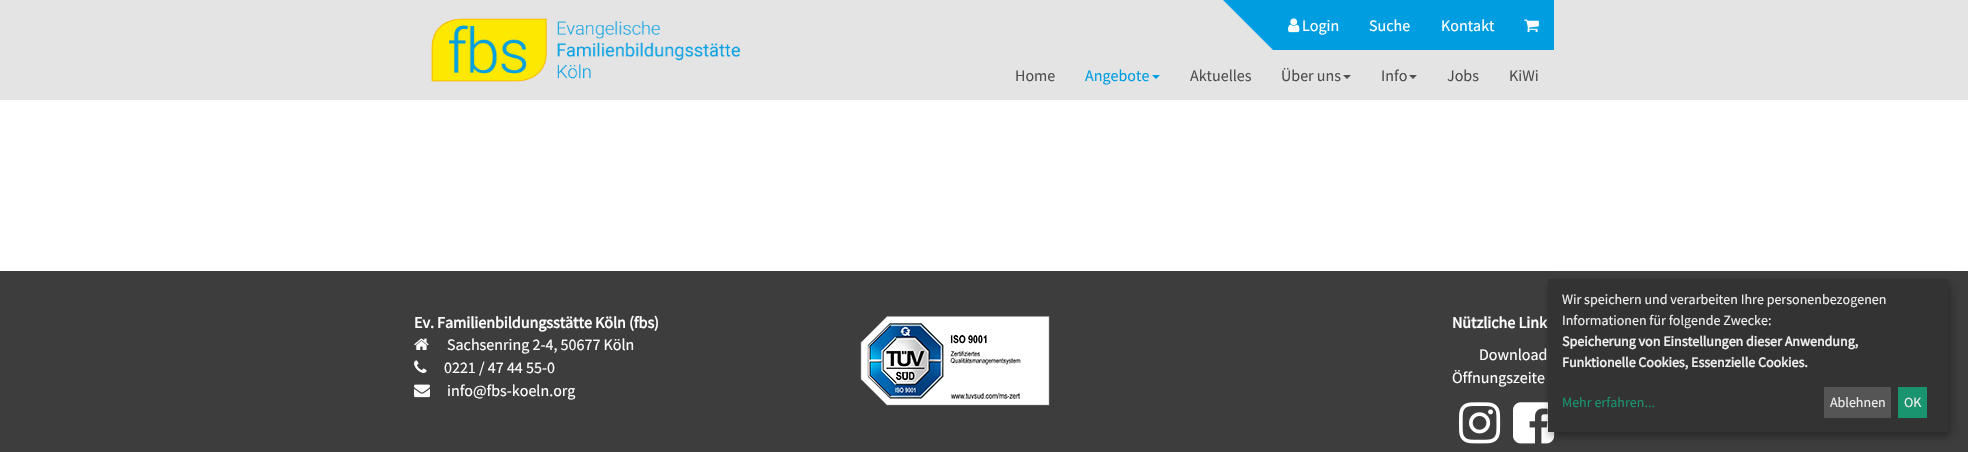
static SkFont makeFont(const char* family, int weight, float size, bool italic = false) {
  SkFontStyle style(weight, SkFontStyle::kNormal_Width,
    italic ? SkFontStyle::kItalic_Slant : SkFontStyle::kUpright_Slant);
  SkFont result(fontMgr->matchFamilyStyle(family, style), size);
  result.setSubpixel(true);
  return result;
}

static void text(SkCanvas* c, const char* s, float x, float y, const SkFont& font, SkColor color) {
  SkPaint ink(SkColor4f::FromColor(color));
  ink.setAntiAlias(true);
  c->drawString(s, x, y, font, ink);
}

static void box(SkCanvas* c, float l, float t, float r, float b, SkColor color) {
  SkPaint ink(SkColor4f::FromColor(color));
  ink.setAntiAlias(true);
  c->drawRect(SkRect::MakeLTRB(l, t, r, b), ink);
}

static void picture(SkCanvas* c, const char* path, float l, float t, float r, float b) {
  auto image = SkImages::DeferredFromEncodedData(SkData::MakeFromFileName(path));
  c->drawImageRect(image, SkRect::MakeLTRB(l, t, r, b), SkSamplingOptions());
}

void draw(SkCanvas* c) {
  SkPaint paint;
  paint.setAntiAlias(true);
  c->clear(0xffffffff);
  box(c, 0, 0, 1968, 100, 0xffe4e4e4);
  picture(c, "img_01.png", 431, 18, 741, 82);
  box(c, 1223, 0, 1554, 50, 0xff009ee0);
  paint.setColor(0xffe4e4e4);
  c->drawPath(SkPathBuilder().moveTo(1273, 50).lineTo(1223, 50).lineTo(1223, 0).close().detach(), paint);
  picture(c, "img_02.png", 1288, 18, 1300, 33);
  SkFont face1 = makeFont("Source Sans Pro", 400, 16);
  text(c, "Login", 1302, 31, face1, 0xffffffff);
  text(c, "Suche", 1369, 31, face1, 0xffffffff);
  text(c, "Kontakt", 1441, 31, face1, 0xffffffff);
  picture(c, "img_03.png", 1524, 19, 1539, 33);
  text(c, "Home", 1015, 81, face1, 0xff505050);
  text(c, "Angebote", 1085, 81, face1, 0xff009ee0);
  paint.setColor(0xff009ee0);
  c->drawPath(SkPathBuilder().moveTo(1152, 75).lineTo(1160, 75).lineTo(1156, 79).close().detach(), paint);
  text(c, "Aktuelles", 1190, 81, face1, 0xff505050);
  text(c, "Über uns", 1281, 81, face1, 0xff505050);
  paint.setColor(0xff505050);
  c->drawPath(SkPathBuilder().moveTo(1343, 75).lineTo(1351, 75).lineTo(1347, 79).close().detach(), paint);
  text(c, "Info", 1381, 81, face1, 0xff505050);
  c->drawPath(SkPathBuilder().moveTo(1409, 75).lineTo(1417, 75).lineTo(1413, 79).close().detach(), paint);
  text(c, "Jobs", 1447, 81, face1, 0xff505050);
  text(c, "KiWi", 1509, 81, face1, 0xff505050);
  box(c, 0, 271, 1968, 452, 0xff3d3d3d);
  SkFont face2 = makeFont("Source Sans Pro", 700, 16);
  text(c, "Ev. Familienbildungsstätte Köln (fbs)", 414, 328, face2, 0xffffffff);
  picture(c, "img_04.png", 414, 338, 429, 350);
  text(c, "Sachsenring 2-4, 50677 Köln", 447, 350, face1, 0xffffffff);
  picture(c, "img_05.png", 414, 360, 427, 373);
  text(c, "0221 / 47 44 55-0", 444, 373, face1, 0xffffffff);
  picture(c, "img_06.png", 414, 384, 430, 398);
  text(c, "info@fbs-koeln.org", 447, 396, face1, 0xffffffff);
  picture(c, "img_07.png", 860, 316, 1050, 406);
  text(c, "Nützliche Link", 1452, 328, face2, 0xffffffff);
  text(c, "Download", 1479, 360, face1, 0xffffffff);
  text(c, "Öffnungszeite", 1452, 383, face1, 0xffffffff);
  picture(c, "img_08.png", 1459, 402, 1501, 444);
  picture(c, "img_09.png", 1513, 402, 1555, 444);
  paint.setColor(0x30000000);
  paint.setMaskFilter(SkMaskFilter::MakeBlur(kNormal_SkBlurStyle, 5));
  c->drawRect(SkRect::MakeLTRB(1553, 284, 1953, 437), paint);
  paint.setMaskFilter(nullptr);
  paint.setColor(0x33000000);
  paint.setMaskFilter(SkMaskFilter::MakeBlur(kNormal_SkBlurStyle, 3));
  c->drawRect(SkRect::MakeLTRB(1548, 283, 1948, 436), paint);
  paint.setMaskFilter(nullptr);
  box(c, 1548, 279, 1948, 432, 0xff333333);
  SkFont face3 = makeFont("Source Sans Pro", 400, 14);
  text(c, "Wir speichern und verarbeiten Ihre personenbezogenen", 1562, 304, face3, 0xffeeeeee);
  text(c, "Informationen für folgende Zwecke:", 1562, 325, face3, 0xffeeeeee);
  SkFont face4 = makeFont("Source Sans Pro", 700, 14);
  text(c, "Speicherung von Einstellungen dieser Anwendung,", 1562, 346, face4, 0xffeeeeee);
  text(c, "Funktionelle Cookies, Essenzielle Cookies.", 1562, 367, face4, 0xffeeeeee);
  text(c, "Mehr erfahren...", 1562, 407, face3, 0xff1a936f);
  box(c, 1824, 387, 1891, 418, 0xff555555);
  text(c, "Ablehnen", 1830, 407, face3, 0xffeeeeee);
  box(c, 1898, 387, 1927, 418, 0xff1a936f);
  text(c, "OK", 1904, 407, face3, 0xffeeeeee);
}
